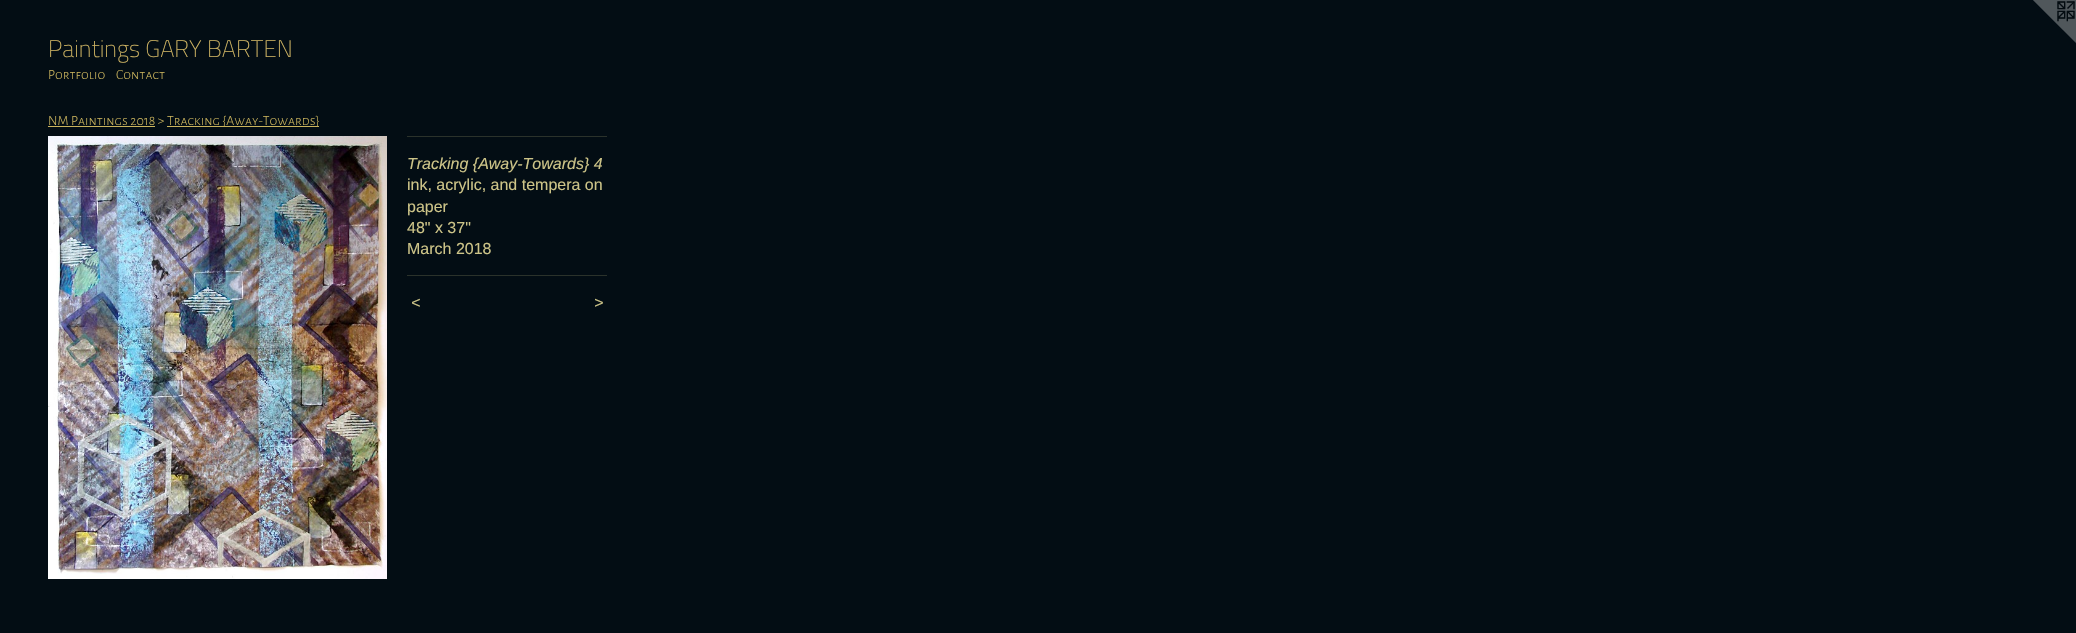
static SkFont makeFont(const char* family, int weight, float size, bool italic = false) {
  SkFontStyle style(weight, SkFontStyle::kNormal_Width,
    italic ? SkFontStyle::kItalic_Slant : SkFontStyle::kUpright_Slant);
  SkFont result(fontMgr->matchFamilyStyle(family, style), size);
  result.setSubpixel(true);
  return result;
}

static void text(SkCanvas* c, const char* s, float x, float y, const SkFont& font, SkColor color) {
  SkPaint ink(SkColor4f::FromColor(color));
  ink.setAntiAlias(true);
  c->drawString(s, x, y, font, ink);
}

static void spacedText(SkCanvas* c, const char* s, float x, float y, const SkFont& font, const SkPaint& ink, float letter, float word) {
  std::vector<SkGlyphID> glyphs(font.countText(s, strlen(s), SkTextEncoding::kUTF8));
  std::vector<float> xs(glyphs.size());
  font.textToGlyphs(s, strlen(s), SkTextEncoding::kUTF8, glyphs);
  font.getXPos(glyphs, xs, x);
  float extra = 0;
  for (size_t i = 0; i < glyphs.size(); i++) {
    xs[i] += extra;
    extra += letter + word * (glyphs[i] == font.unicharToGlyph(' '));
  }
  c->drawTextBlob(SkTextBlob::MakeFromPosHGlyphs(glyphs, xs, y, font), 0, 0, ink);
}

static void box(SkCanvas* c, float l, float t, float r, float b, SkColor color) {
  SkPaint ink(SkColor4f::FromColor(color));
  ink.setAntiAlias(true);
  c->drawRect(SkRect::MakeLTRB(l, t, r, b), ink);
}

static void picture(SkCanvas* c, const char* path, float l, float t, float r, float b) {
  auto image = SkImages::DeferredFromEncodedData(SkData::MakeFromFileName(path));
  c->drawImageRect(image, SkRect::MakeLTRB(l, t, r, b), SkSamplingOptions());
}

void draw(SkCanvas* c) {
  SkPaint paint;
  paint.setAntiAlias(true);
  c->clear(0xff030d14);
  picture(c, "img_01.png", 2033, 0, 2076, 43);
  SkFont face1 = makeFont("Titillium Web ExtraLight", 200, 24);
  text(c, "Paintings GARY BARTEN", 48, 57, face1, 0xffcfb463);
  SkFont face2 = makeFont("Alegreya Sans SC", 300, 14);
  text(c, "Portfolio", 48, 79, face2, 0xffcbb45d);
  text(c, "Contact", 116, 79, face2, 0xffcbb45d);
  text(c, "NM Paintings 2018 >", 48, 125, face2, 0xffcbb45d);
  box(c, 48, 126, 155, 127, 0xffcbb45d);
  box(c, 167, 126, 319, 127, 0xffcbb45d);
  text(c, "Tracking {Away-Towards}", 167, 125, face2, 0xffcbb45d);
  picture(c, "img_02.png", 48, 136, 387, 579);
  box(c, 407, 136, 607, 137, 0xff2b322b);
  SkFont face3 = makeFont("Liberation Sans", 400, 16, true);
  text(c, "Tracking {Away-Towards} 4", 407, 169, face3, 0xffcdc488);
  SkFont face4 = makeFont("Liberation Sans", 400, 16);
  text(c, "ink, acrylic, and tempera on", 407, 190, face4, 0xffcdc488);
  text(c, "paper", 407, 212, face4, 0xffcdc488);
  text(c, "48\" x 37\"", 407, 233, face4, 0xffcdc488);
  text(c, "March 2018", 407, 254, face4, 0xffcdc488);
  box(c, 407, 275, 607, 276, 0xff2b322b);
  paint.setColor(0xffcdc488);
  spacedText(c, "<", 411, 308, face3, paint, 1, 0);
  spacedText(c, ">", 594, 308, face3, paint, 1, 0);
}
